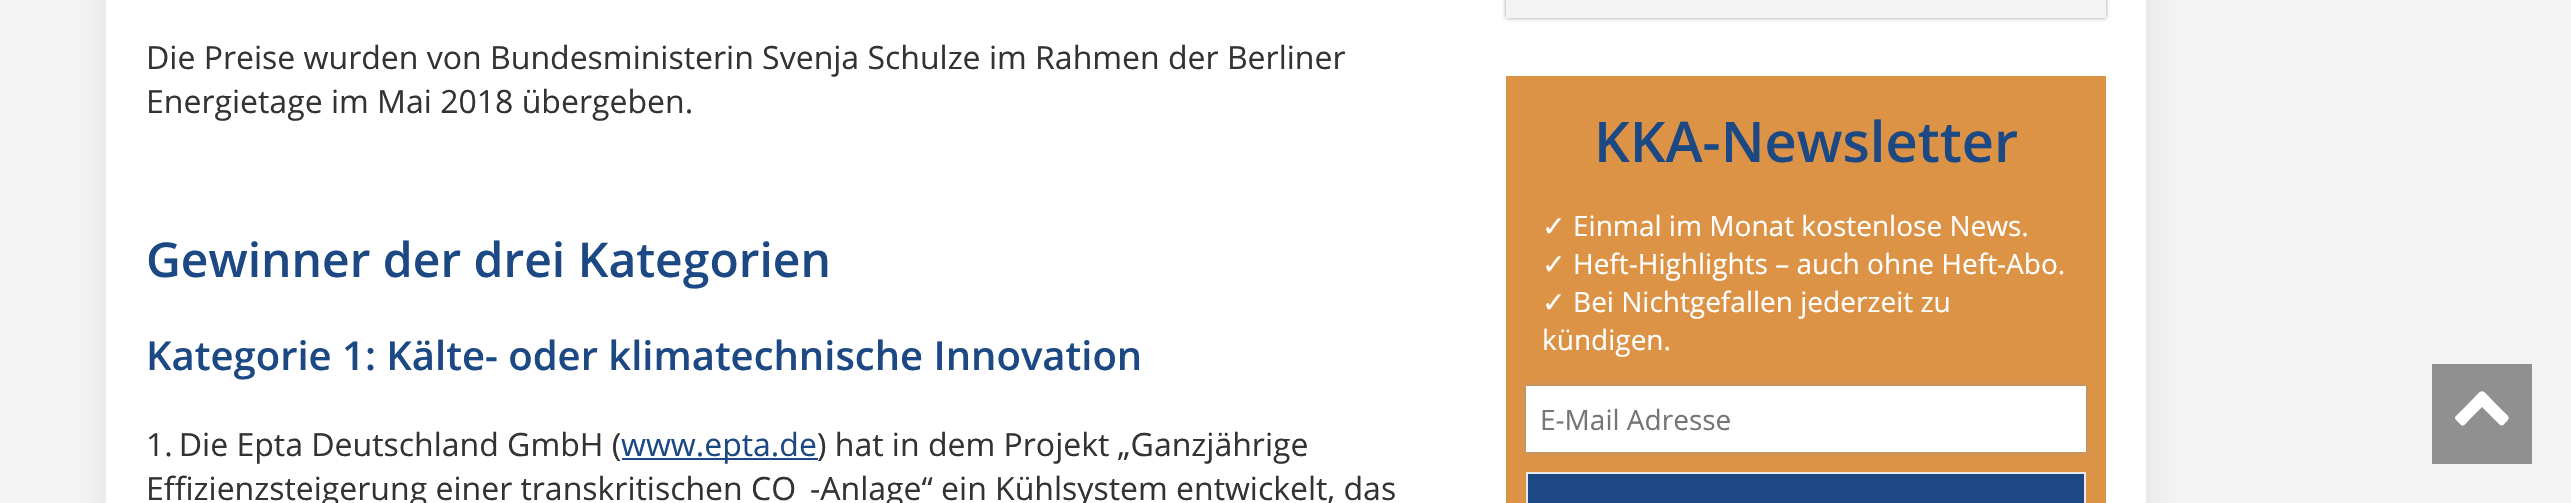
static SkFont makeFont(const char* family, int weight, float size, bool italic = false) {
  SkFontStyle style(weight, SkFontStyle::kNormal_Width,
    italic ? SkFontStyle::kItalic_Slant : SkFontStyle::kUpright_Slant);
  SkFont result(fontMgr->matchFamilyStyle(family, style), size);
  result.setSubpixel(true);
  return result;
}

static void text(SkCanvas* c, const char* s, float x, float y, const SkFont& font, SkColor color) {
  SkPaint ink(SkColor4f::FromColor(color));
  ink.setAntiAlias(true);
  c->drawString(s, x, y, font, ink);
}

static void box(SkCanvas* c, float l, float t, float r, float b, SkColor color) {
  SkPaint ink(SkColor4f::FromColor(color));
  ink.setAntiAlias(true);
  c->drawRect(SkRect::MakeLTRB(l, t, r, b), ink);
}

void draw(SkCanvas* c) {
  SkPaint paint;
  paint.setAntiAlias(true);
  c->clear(0xfff3f3f3);
  paint.setColor(0x2b677a8d);
  paint.setMaskFilter(SkMaskFilter::MakeBlur(kNormal_SkBlurStyle, 15));
  c->drawRect(SkRect::MakeLTRB(106, -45, 2146, 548), paint);
  paint.setMaskFilter(nullptr);
  box(c, 106, 0, 2146, 503, 0xffffffff);
  SkFont face1 = makeFont("Open Sans", 400, 32);
  text(c, "Die Preise wurden von Bundesministerin Svenja Schulze im Rahmen der Berliner", 146, 69, face1, 0xff333333);
  text(c, "Energietage im Mai 2018 übergeben.", 146, 113, face1, 0xff333333);
  SkFont face2 = makeFont("Open Sans", 600, 48);
  text(c, "Gewinner der drei Kategorien", 146, 277, face2, 0xff1c4984);
  SkFont face3 = makeFont("Open Sans", 600, 40);
  text(c, "Kategorie 1: Kälte- oder klimatechnische Innovation", 146, 370, face3, 0xff1c4984);
  text(c, "1. Die Epta Deutschland GmbH (", 146, 456, face1, 0xff333333);
  box(c, 622, 458, 818, 460, 0xff1c4984);
  text(c, "www.epta.de", 621, 456, face1, 0xff1c4984);
  text(c, ") hat in dem Projekt „Ganzjährige", 817, 456, face1, 0xff333333);
  text(c, "Effizienzsteigerung einer transkritischen CO", 146, 500, face1, 0xff333333);
  text(c, "-Anlage“ ein Kühlsystem entwickelt, das", 810, 500, face1, 0xff333333);
  paint.setColor(0xff999999);
  paint.setMaskFilter(SkMaskFilter::MakeBlur(kNormal_SkBlurStyle, 2));
  c->drawRect(SkRect::MakeLTRB(1506, -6, 2106, 18), paint);
  paint.setMaskFilter(nullptr);
  box(c, 1506, 0, 2106, 18, 0xfff3f3f3);
  box(c, 1506, 76, 2106, 503, 0xffdd9346);
  SkFont face4 = makeFont("Open Sans", 600, 56);
  text(c, "KKA-Newsletter", 1594, 162, face4, 0xff1c4984);
  SkFont face5 = makeFont("DejaVu Sans", 400, 28);
  text(c, "✓", 1542, 236, face5, 0xffffffff);
  SkFont face6 = makeFont("Open Sans", 400, 28);
  text(c, "Einmal im Monat kostenlose News.", 1573, 236, face6, 0xffffffff);
  text(c, "✓", 1542, 274, face5, 0xffffffff);
  text(c, "Heft-Highlights – auch ohne Heft-Abo.", 1573, 274, face6, 0xffffffff);
  text(c, "✓", 1542, 312, face5, 0xffffffff);
  text(c, "Bei Nichtgefallen jederzeit zu", 1573, 312, face6, 0xffffffff);
  text(c, "kündigen.", 1542, 350, face6, 0xffffffff);
  paint.setMaskFilter(SkMaskFilter::MakeBlur(kNormal_SkBlurStyle, 2));
  c->drawRect(SkRect::MakeLTRB(1526, 386, 2086, 452), paint);
  paint.setMaskFilter(nullptr);
  box(c, 1526, 386, 2086, 452, 0xffffffff);
  text(c, "E-Mail Adresse", 1540, 430, face6, 0xff757575);
  paint.setColor(0xff1c4984);
  c->drawRect(SkRect::MakeLTRB(1527, 473, 2085, 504), paint);
  paint.setStyle(SkPaint::kStroke_Style);
  paint.setStrokeWidth(2);
  paint.setColor(0xffe8e8e8);
  c->drawRect(SkRect::MakeLTRB(1527, 473, 2085, 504), paint);
  box(c, 2432, 364, 2532, 464, 0xff909090);
  paint.setStyle(SkPaint::kFill_Style);
  paint.setColor(0xffffffff);
  c->drawPath(SkPathBuilder().moveTo(2508, 420).cubicTo(2502, 426, 2503, 428, 2497, 422).lineTo(2482, 407).lineTo(2470, 419).cubicTo(2464, 425, 2464, 428, 2459, 423).cubicTo(2453, 417, 2454, 418, 2460, 412).lineTo(2468, 404).cubicTo(2485, 387, 2479, 387, 2496, 404).lineTo(2504, 412).cubicTo(2505, 413, 2511, 417, 2508, 420).close().detach(), paint);
}
